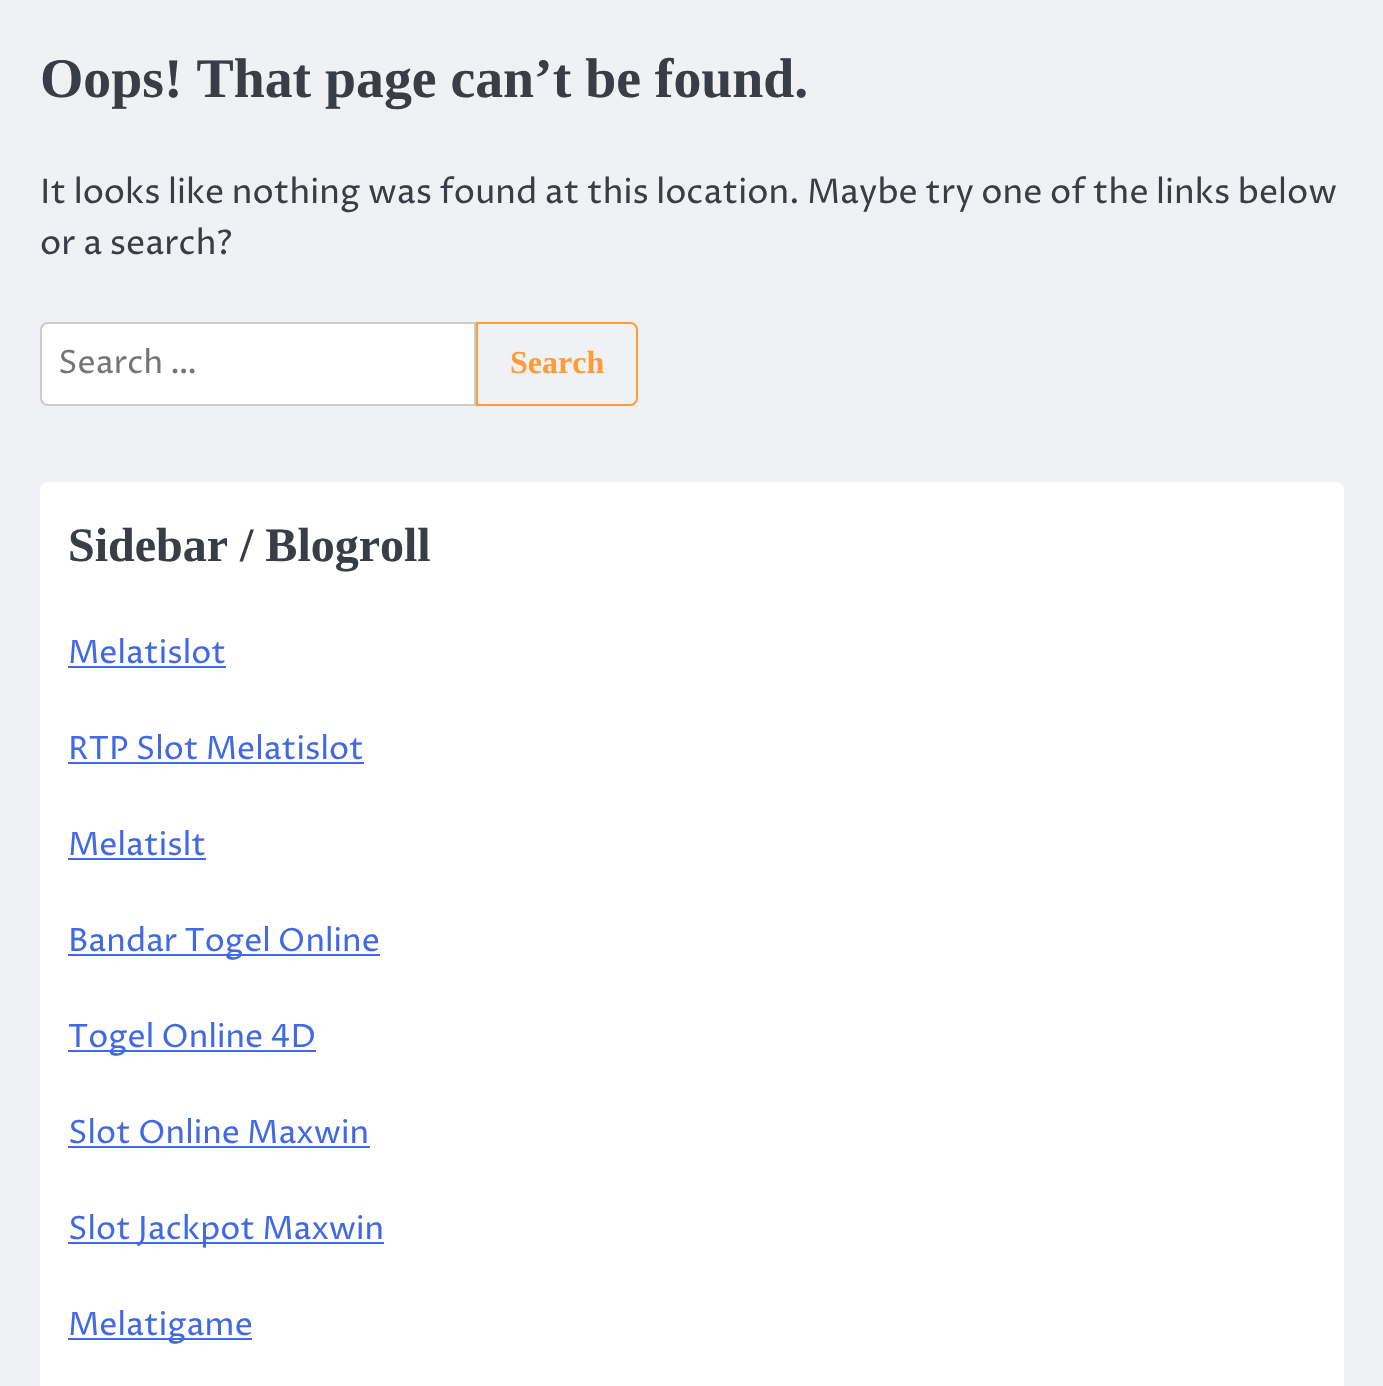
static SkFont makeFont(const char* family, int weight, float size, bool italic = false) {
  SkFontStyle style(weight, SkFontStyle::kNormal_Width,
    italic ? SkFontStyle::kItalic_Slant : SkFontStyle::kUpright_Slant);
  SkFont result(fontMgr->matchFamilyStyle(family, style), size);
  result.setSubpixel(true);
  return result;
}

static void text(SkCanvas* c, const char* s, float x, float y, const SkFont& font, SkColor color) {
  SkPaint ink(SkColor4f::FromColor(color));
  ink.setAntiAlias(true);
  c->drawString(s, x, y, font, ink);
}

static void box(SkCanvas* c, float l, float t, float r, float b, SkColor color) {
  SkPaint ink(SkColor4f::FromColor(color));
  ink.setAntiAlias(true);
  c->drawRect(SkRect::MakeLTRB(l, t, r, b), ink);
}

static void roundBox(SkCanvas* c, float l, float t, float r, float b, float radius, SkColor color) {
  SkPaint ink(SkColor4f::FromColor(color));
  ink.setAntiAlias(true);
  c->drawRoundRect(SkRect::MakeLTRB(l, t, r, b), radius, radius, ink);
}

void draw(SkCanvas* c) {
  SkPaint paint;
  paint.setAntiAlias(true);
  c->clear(0xfff0f1f4);
  SkFont face1 = makeFont("Liberation Serif", 700, 55.75f);
  text(c, "Oops! That page can’t be found.", 40, 97, face1, 0xff393e46);
  SkFont face2 = makeFont("Proza Libre", 400, 33.85f);
  text(c, "It looks like nothing was found at this location. Maybe try one of the links below", 40, 203, face2, 0xff393e46);
  text(c, "or a search?", 40, 254, face2, 0xff393e46);
  paint.setColor(0xffffffff);
  c->drawPath(SkPathBuilder().moveTo(48, 323).lineTo(475, 323).lineTo(475, 405).lineTo(48, 405).cubicTo(44, 405, 41, 402, 41, 398).lineTo(41, 330).cubicTo(41, 326, 44, 323, 48, 323).close().detach(), paint);
  paint.setStyle(SkPaint::kStroke_Style);
  paint.setStrokeWidth(2);
  paint.setColor(0xffcccccc);
  c->drawPath(SkPathBuilder().moveTo(48, 323).lineTo(475, 323).lineTo(475, 405).lineTo(48, 405).cubicTo(44, 405, 41, 402, 41, 398).lineTo(41, 330).cubicTo(41, 326, 44, 323, 48, 323).close().detach(), paint);
  SkFont face3 = makeFont("Proza Libre", 400, 32);
  text(c, "Search …", 58, 373, face3, 0xff757575);
  paint.setColor(0xffff9b38);
  c->drawPath(SkPathBuilder().moveTo(477, 323).lineTo(630, 323).cubicTo(634, 323, 637, 326, 637, 330).lineTo(637, 398).cubicTo(637, 402, 634, 405, 630, 405).lineTo(477, 405).close().detach(), paint);
  SkFont face4 = makeFont("Liberation Serif", 700, 32);
  text(c, "Search", 510, 373, face4, 0xffff9b38);
  roundBox(c, 40, 482, 1344, 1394, 8, 0xffffffff);
  SkFont face5 = makeFont("Liberation Serif", 700, 48);
  text(c, "Sidebar / Blogroll", 68, 561, face5, 0xff393e46);
  text(c, "Melatislot", 68, 663, face3, 0xff4169e1);
  box(c, 68, 666, 226, 668, 0xff4169e1);
  text(c, "RTP Slot Melatislot", 68, 759, face3, 0xff4169e1);
  box(c, 68, 762, 364, 764, 0xff4169e1);
  text(c, "Melatislt", 68, 855, face3, 0xff4169e1);
  box(c, 68, 858, 206, 860, 0xff4169e1);
  box(c, 68, 954, 380, 956, 0xff4169e1);
  text(c, "Bandar Togel Online", 68, 951, face3, 0xff4169e1);
  box(c, 68, 1050, 316, 1052, 0xff4169e1);
  text(c, "Togel Online 4D", 68, 1047, face3, 0xff4169e1);
  text(c, "Slot Online Maxwin", 68, 1143, face3, 0xff4169e1);
  box(c, 68, 1146, 370, 1148, 0xff4169e1);
  box(c, 68, 1242, 384, 1244, 0xff4169e1);
  text(c, "Slot Jackpot Maxwin", 68, 1239, face3, 0xff4169e1);
  box(c, 68, 1338, 252, 1340, 0xff4169e1);
  text(c, "Melatigame", 68, 1335, face3, 0xff4169e1);
}
